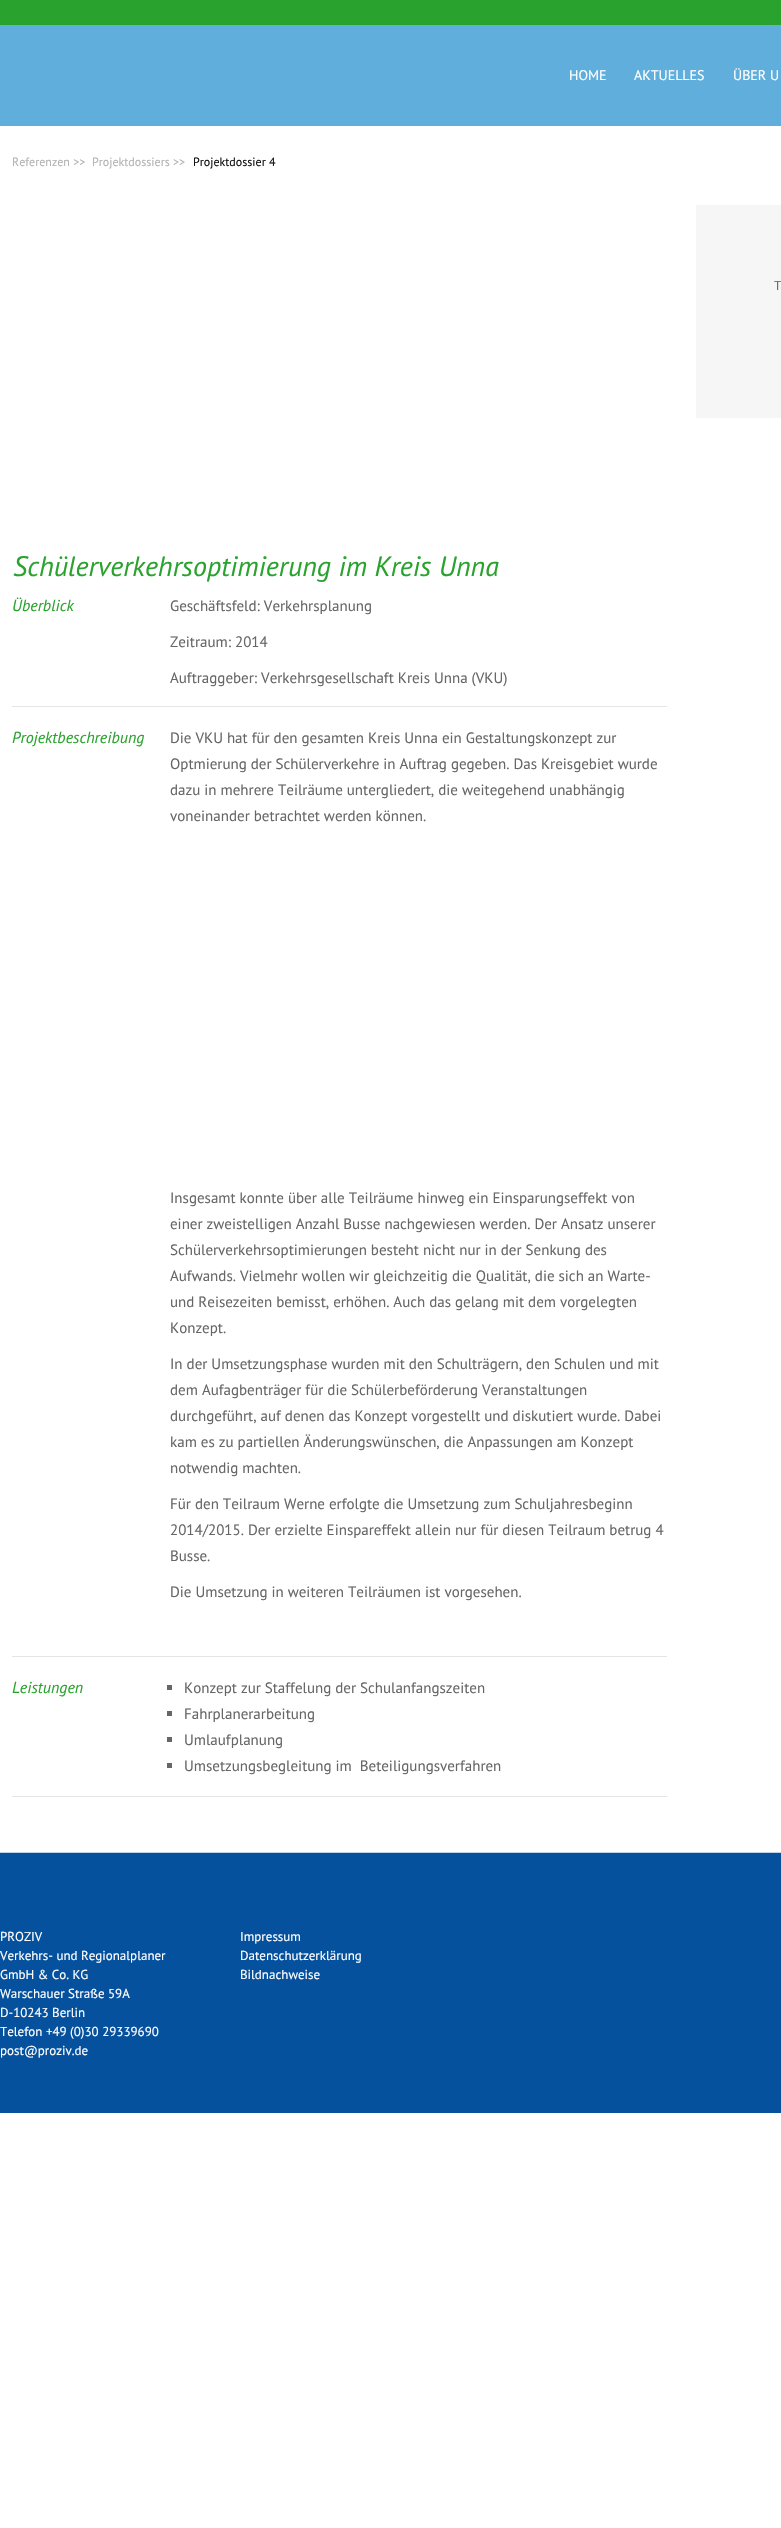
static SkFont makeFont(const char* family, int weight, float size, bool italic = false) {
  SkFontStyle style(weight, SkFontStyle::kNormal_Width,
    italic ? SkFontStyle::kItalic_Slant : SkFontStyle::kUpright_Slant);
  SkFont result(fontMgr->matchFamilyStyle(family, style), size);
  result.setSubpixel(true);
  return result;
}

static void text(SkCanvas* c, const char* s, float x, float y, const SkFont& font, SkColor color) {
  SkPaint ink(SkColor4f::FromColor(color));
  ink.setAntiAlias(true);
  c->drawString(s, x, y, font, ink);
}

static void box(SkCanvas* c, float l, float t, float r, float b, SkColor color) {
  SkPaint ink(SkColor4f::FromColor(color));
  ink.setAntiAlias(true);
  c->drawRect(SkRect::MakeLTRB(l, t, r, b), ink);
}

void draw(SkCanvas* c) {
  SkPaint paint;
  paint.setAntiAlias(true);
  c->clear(0xffffffff);
  box(c, 0, 0, 781, 25, 0xff29a32e);
  box(c, 0, 25, 781, 126, 0xff60aedc);
  SkFont face1 = makeFont("PT Sans", 400, 14);
  text(c, "HOME", 569, 80, face1, 0xffffffff);
  text(c, "AKTUELLES", 634, 80, face1, 0xffffffff);
  text(c, "ÜBER U", 733, 80, face1, 0xffffffff);
  SkFont face2 = makeFont("PT Sans", 400, 12);
  text(c, "Referenzen >>", 12, 166, face2, 0xffb3b3b3);
  text(c, "Projektdossiers >>", 92, 166, face2, 0xffb3b3b3);
  text(c, "Projektdossier 4", 193, 166, face2, 0xff111111);
  box(c, 696, 205, 781, 418, 0xfff6f6f6);
  SkFont face3 = makeFont("PT Sans", 400, 13);
  text(c, "T", 774, 290, face3, 0xff666666);
  SkFont face4 = makeFont("PT Sans", 400, 28, true);
  text(c, "Schülerverkehrsoptimierung im Kreis Unna", 13, 576, face4, 0xff29a32e);
  box(c, 12, 706, 667, 707, 0xffe6e5e5);
  SkFont face5 = makeFont("PT Sans", 400, 16, true);
  text(c, "Überblick", 12, 611, face5, 0xff29a32e);
  SkFont face6 = makeFont("PT Sans", 400, 15);
  text(c, "Geschäftsfeld: Verkehrsplanung", 170, 611, face6, 0xff666666);
  text(c, "Zeitraum: 2014", 170, 647, face6, 0xff666666);
  text(c, "Auftraggeber: Verkehrsgesellschaft Kreis Unna (VKU)", 170, 683, face6, 0xff666666);
  box(c, 12, 1656, 667, 1657, 0xffe6e5e5);
  text(c, "Projektbeschreibung", 12, 743, face5, 0xff29a32e);
  text(c, "Die VKU hat für den gesamten Kreis Unna ein Gestaltungskonzept zur", 170, 743, face6, 0xff666666);
  text(c, "Optmierung der Schülerverkehre in Auftrag gegeben. Das Kreisgebiet wurde", 170, 769, face6, 0xff666666);
  text(c, "dazu in mehrere Teilräume untergliedert, die weitegehend unabhängig", 170, 795, face6, 0xff666666);
  text(c, "voneinander betrachtet werden können.", 170, 821, face6, 0xff666666);
  text(c, "Insgesamt konnte über alle Teilräume hinweg ein Einsparungseffekt von", 170, 1203, face6, 0xff666666);
  text(c, "einer zweistelligen Anzahl Busse nachgewiesen werden. Der Ansatz unserer", 170, 1229, face6, 0xff666666);
  text(c, "Schülerverkehrsoptimierungen besteht nicht nur in der Senkung des", 170, 1255, face6, 0xff666666);
  text(c, "Aufwands. Vielmehr wollen wir gleichzeitig die Qualität, die sich an Warte-", 170, 1281, face6, 0xff666666);
  text(c, "und Reisezeiten bemisst, erhöhen. Auch das gelang mit dem vorgelegten", 170, 1307, face6, 0xff666666);
  text(c, "Konzept.", 170, 1333, face6, 0xff666666);
  text(c, "In der Umsetzungsphase wurden mit den Schulträgern, den Schulen und mit", 170, 1369, face6, 0xff666666);
  text(c, "dem Aufagbenträger für die Schülerbeförderung Veranstaltungen", 170, 1395, face6, 0xff666666);
  text(c, "durchgeführt, auf denen das Konzept vorgestellt und diskutiert wurde. Dabei", 170, 1421, face6, 0xff666666);
  text(c, "kam es zu partiellen Änderungswünschen, die Anpassungen am Konzept", 170, 1447, face6, 0xff666666);
  text(c, "notwendig machten.", 170, 1473, face6, 0xff666666);
  text(c, "Für den Teilraum Werne erfolgte die Umsetzung zum Schuljahresbeginn", 170, 1509, face6, 0xff666666);
  text(c, "2014/2015. Der erzielte Einspareffekt allein nur für diesen Teilraum betrug 4", 170, 1535, face6, 0xff666666);
  text(c, "Busse.", 170, 1561, face6, 0xff666666);
  text(c, "Die Umsetzung in weiteren Teilräumen ist vorgesehen.", 170, 1597, face6, 0xff666666);
  box(c, 12, 1796, 667, 1797, 0xffe6e5e5);
  text(c, "Leistungen", 12, 1693, face5, 0xff29a32e);
  box(c, 167, 1685, 172, 1690, 0xff666666);
  text(c, "Konzept zur Staffelung der Schulanfangszeiten", 184, 1693, face6, 0xff666666);
  box(c, 167, 1711, 172, 1716, 0xff666666);
  text(c, "Fahrplanerarbeitung", 184, 1719, face6, 0xff666666);
  box(c, 167, 1737, 172, 1742, 0xff666666);
  text(c, "Umlaufplanung", 184, 1745, face6, 0xff666666);
  box(c, 167, 1763, 172, 1768, 0xff666666);
  text(c, "Umsetzungsbegleitung im  Beteiligungsverfahren", 184, 1771, face6, 0xff666666);
  box(c, 0, 1853, 781, 2113, 0xff06519d);
  box(c, 0, 1852, 781, 1853, 0xffc1d3e6);
  text(c, "PROZIV", 0, 1941, face3, 0xffffffff);
  text(c, "Verkehrs- und Regionalplaner", 0, 1960, face3, 0xffffffff);
  text(c, "GmbH & Co. KG", 0, 1979, face3, 0xffffffff);
  text(c, "Warschauer Straße 59A", 0, 1998, face3, 0xffffffff);
  text(c, "D-10243 Berlin", 0, 2017, face3, 0xffffffff);
  text(c, "Telefon +49 (0)30 29339690", 0, 2036, face3, 0xffffffff);
  text(c, "post@proziv.de", 0, 2055, face3, 0xffffffff);
  text(c, "Impressum", 240, 1941, face3, 0xffffffff);
  text(c, "Datenschutzerklärung", 240, 1960, face3, 0xffffffff);
  text(c, "Bildnachweise", 240, 1979, face3, 0xffffffff);
}
